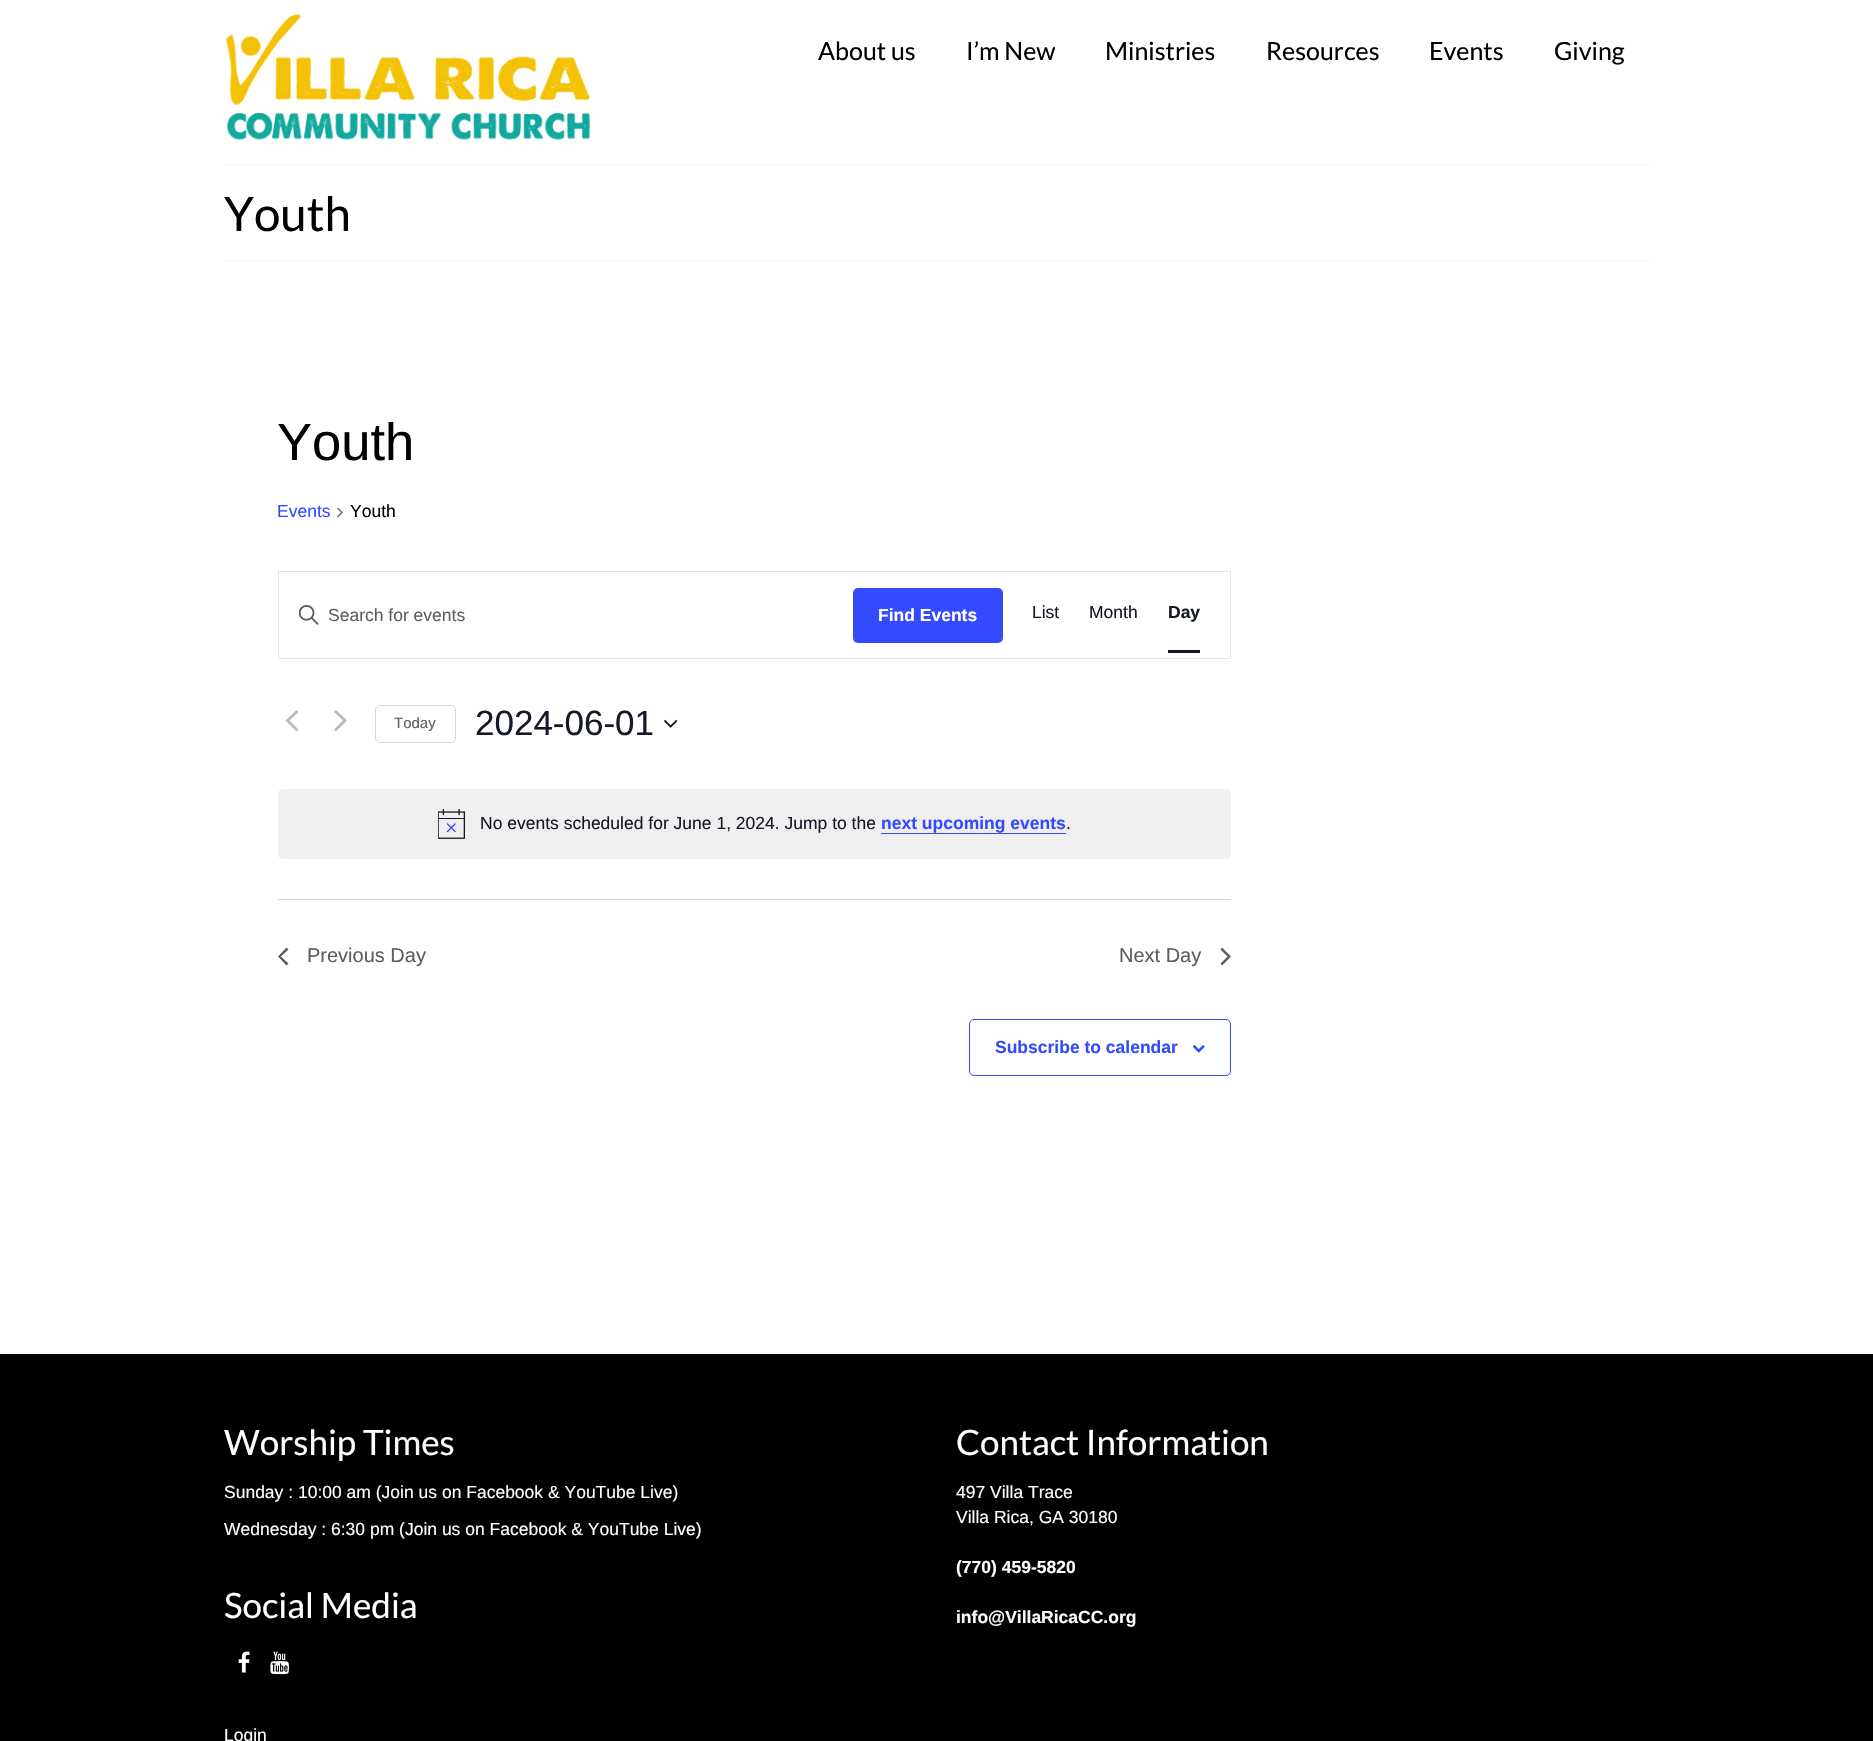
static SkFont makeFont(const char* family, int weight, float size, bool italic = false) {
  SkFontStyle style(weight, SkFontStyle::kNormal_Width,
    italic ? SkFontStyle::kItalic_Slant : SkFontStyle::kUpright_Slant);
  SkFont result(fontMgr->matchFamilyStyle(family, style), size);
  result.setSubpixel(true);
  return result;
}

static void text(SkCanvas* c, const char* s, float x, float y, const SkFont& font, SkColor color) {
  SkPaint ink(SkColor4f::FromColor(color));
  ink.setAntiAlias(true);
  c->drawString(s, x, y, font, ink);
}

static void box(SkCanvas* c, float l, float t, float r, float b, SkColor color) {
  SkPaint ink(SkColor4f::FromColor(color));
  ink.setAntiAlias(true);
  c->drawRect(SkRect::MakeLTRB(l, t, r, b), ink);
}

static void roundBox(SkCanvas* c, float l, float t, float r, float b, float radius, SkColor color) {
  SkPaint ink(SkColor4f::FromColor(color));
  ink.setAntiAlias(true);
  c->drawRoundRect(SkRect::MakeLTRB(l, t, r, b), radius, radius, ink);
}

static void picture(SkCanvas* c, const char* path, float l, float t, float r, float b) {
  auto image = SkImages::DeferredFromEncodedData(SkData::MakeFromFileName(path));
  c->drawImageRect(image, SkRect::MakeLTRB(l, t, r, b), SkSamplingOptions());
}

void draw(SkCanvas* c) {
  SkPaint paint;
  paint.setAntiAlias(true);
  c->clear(0xff000000);
  box(c, 0, 0, 1873, 1354, 0xffffffff);
  picture(c, "img_01.png", 226, 14, 590, 141);
  SkFont face1 = makeFont("Lato", 400, 25);
  text(c, "About us", 818, 60, face1, 0xff000000);
  text(c, "I’m New", 966, 60, face1, 0xff000000);
  text(c, "Ministries", 1105, 60, face1, 0xff000000);
  text(c, "Resources", 1266, 60, face1, 0xff000000);
  text(c, "Events", 1429, 60, face1, 0xff000000);
  text(c, "Giving", 1554, 60, face1, 0xff000000);
  box(c, 225, 164, 1650, 165, 0xfff2f2f2);
  box(c, 225, 260, 1650, 261, 0xfff2f2f2);
  SkFont face2 = makeFont("Lato", 400, 47.5f);
  text(c, "Youth", 224, 231, face2, 0xff000000);
  SkFont face3 = makeFont("Liberation Sans", 400, 52.5f);
  text(c, "Youth", 277, 460, face3, 0xff000000);
  SkFont face4 = makeFont("Liberation Sans", 400, 17.5f);
  text(c, "Events", 277, 517, face4, 0xff334aff);
  picture(c, "img_02.png", 337, 508, 343, 518);
  text(c, "Youth", 350, 517, face4, 0xff000000);
  paint.setStyle(SkPaint::kStroke_Style);
  paint.setStrokeWidth(1);
  paint.setColor(0xffe4e4e4);
  c->drawRect(SkRect::MakeLTRB(278.5f, 571.5f, 1230.5f, 658.5f), paint);
  picture(c, "img_03.png", 299, 605, 319, 625);
  text(c, "Search for events", 328, 621, face4, 0xff5d5d5d);
  roundBox(c, 853, 588, 1003, 643, 5, 0xff334aff);
  SkFont face5 = makeFont("Liberation Sans", 700, 17.5f);
  text(c, "Find Events", 878, 621, face5, 0xffffffff);
  text(c, "List", 1032, 618, face4, 0xff141827);
  text(c, "Month", 1089, 618, face4, 0xff141827);
  text(c, "Day", 1168, 618, face5, 0xff141827);
  box(c, 1168, 650, 1200, 653, 0xff141827);
  paint.setStyle(SkPaint::kFill_Style);
  paint.setColor(0xffbababa);
  c->drawPath(SkPathBuilder().moveTo(298.5f, 729.5f).lineTo(296.5f, 731.5f).lineTo(285.5f, 720.5f).lineTo(296.5f, 710).lineTo(298.5f, 712).lineTo(289.5f, 720.5f).close().moveTo(334, 712).lineTo(336, 710).lineTo(347, 720.5f).lineTo(336, 731.5f).lineTo(334, 729.5f).lineTo(343, 720.5f).close().detach(), paint);
  paint.setStyle(SkPaint::kStroke_Style);
  paint.setColor(0xffd5d5d5);
  c->drawRoundRect(SkRect::MakeLTRB(375.5f, 705.5f, 455.5f, 742.5f), 4.5f, 4.5f, paint);
  SkFont face6 = makeFont("Liberation Sans", 400, 15);
  text(c, "Today", 394, 728, face6, 0xff5d5d5d);
  SkFont face7 = makeFont("Liberation Sans", 400, 35);
  text(c, "2024-06-01", 475, 735, face7, 0xff141827);
  picture(c, "img_04.png", 664, 719, 678, 728);
  roundBox(c, 278, 789, 1231, 859, 5, 0xffefeff0);
  picture(c, "img_05.png", 438, 809, 465, 839);
  text(c, "No events scheduled for June 1, 2024. Jump to the", 480, 829, face4, 0xff141827);
  text(c, "next upcoming events", 881, 829, face5, 0xff334aff);
  box(c, 881, 833, 1066, 834, 0xff334aff);
  text(c, ".", 1066, 829, face4, 0xff141827);
  box(c, 278, 899, 1231, 900, 0xffd5d5d5);
  paint.setStyle(SkPaint::kFill_Style);
  paint.setColor(0xff5d5d5d);
  c->drawPath(SkPathBuilder().moveTo(288.5f, 963.5f).lineTo(286.5f, 965.5f).lineTo(278, 956.5f).lineTo(286.5f, 947.5f).lineTo(288.5f, 949.5f).lineTo(281, 956.5f).close().detach(), paint);
  SkFont face8 = makeFont("Liberation Sans", 400, 20);
  text(c, "Previous Day", 307, 962, face8, 0xff5d5d5d);
  text(c, "Next Day", 1119, 962, face8, 0xff5d5d5d);
  c->save();
  c->clipRect(SkRect::MakeLTRB(1220, 948, 1231, 965));
  c->drawPath(SkPathBuilder().moveTo(1220.5f, 949.5f).lineTo(1222, 947.5f).lineTo(1231, 956.5f).lineTo(1222, 965.5f).lineTo(1220.5f, 963.5f).lineTo(1227.5f, 956.5f).close().detach(), paint);
  c->restore();
  paint.setStyle(SkPaint::kStroke_Style);
  paint.setColor(0xff334aff);
  c->drawRoundRect(SkRect::MakeLTRB(969.5f, 1019.5f, 1230.5f, 1075.5f), 4.5f, 4.5f, paint);
  text(c, "Subscribe to calendar", 995, 1053, face5, 0xff334aff);
  picture(c, "img_06.png", 1193, 1045, 1205, 1053);
  SkFont face9 = makeFont("Lato", 400, 35);
  text(c, "Worship Times", 224, 1455, face9, 0xffffffff);
  text(c, "Sunday : 10:00 am (Join us on Facebook & YouTube Live)", 224, 1498, face4, 0xffffffff);
  text(c, "Wednesday : 6:30 pm (Join us on Facebook & YouTube Live)", 224, 1535, face4, 0xffffffff);
  text(c, "Social Media", 224, 1618, face9, 0xffffffff);
  picture(c, "img_07.png", 238, 1651, 250, 1673);
  picture(c, "img_08.png", 270, 1651, 289, 1675);
  text(c, "Login", 224, 1741, face4, 0xffffffff);
  text(c, "Contact Information", 956, 1455, face9, 0xffffffff);
  text(c, "497 Villa Trace", 956, 1498, face4, 0xffffffff);
  text(c, "Villa Rica, GA 30180", 956, 1523, face4, 0xffffffff);
  text(c, "(770) 459-5820", 956, 1573, face5, 0xffffffff);
  text(c, "info@VillaRicaCC.org", 956, 1623, face5, 0xffffffff);
}
